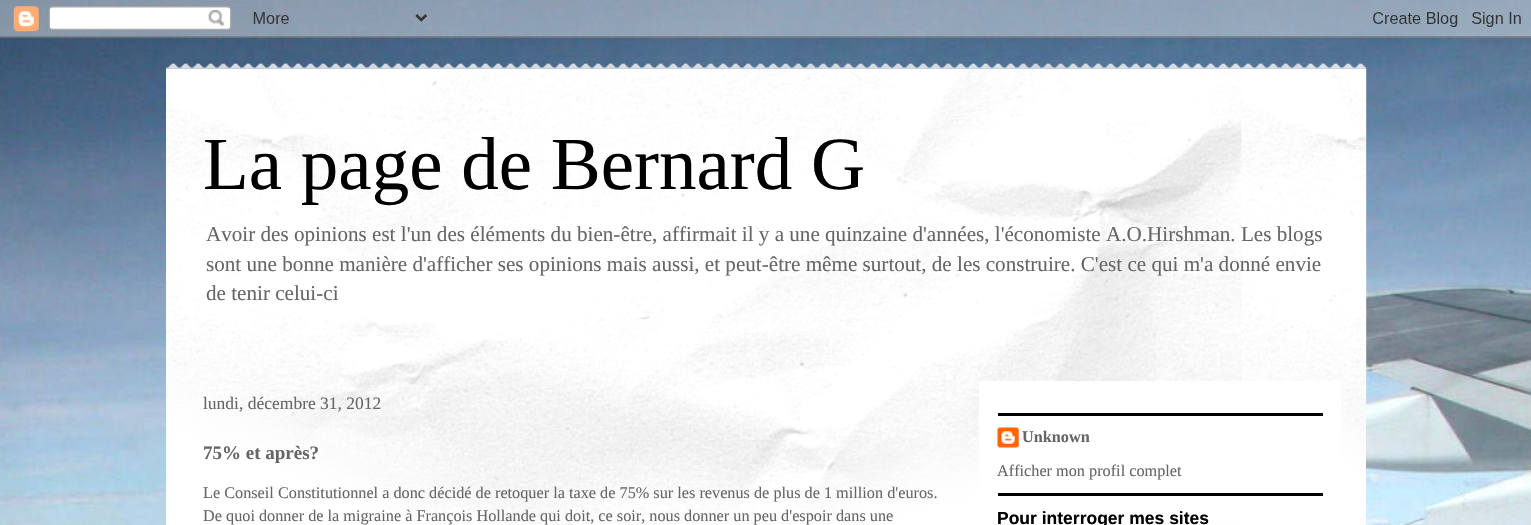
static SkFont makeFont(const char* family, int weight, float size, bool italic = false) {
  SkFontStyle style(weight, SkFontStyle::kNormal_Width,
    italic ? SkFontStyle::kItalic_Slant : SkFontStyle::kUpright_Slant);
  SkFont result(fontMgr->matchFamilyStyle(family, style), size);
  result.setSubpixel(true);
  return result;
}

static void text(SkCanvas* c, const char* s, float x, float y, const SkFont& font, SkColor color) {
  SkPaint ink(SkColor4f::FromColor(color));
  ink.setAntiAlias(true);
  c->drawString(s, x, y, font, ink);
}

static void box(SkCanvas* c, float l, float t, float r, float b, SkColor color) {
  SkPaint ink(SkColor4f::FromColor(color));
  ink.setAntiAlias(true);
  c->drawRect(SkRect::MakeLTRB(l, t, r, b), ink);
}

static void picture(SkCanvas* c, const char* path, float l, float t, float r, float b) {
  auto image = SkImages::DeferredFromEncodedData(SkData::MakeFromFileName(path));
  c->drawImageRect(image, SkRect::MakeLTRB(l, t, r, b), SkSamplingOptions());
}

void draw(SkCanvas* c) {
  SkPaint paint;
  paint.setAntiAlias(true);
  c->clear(0xffffffff);
  picture(c, "img_01.png", 0, 0, 1531, 525);
  picture(c, "img_02.png", 0, 0, 1531, 38);
  picture(c, "img_03.png", 166, 63, 1367, 69);
  box(c, 166, 69, 1366, 525, 0xffffffff);
  picture(c, "img_04.png", 166, 68, 1367, 525);
  SkFont face1 = makeFont("Liberation Serif", 400, 75);
  text(c, "La page de Bernard G", 203, 189, face1, 0xff000000);
  SkFont face2 = makeFont("Liberation Serif", 400, 21.12f);
  text(c, "Avoir des opinions est l'un des éléments du bien-être, affirmait il y a une quinzaine d'années, l'économiste A.O.Hirshman. Les blogs", 206, 241, face2, 0xff666666);
  text(c, "sont une bonne manière d'afficher ses opinions mais aussi, et peut-être même surtout, de les construire. C'est ce qui m'a donné envie", 206, 271, face2, 0xff666666);
  text(c, "de tenir celui-ci", 206, 300, face2, 0xff666666);
  box(c, 979, 381, 1341, 520, 0xffffffff);
  SkFont face3 = makeFont("Liberation Serif", 400, 17.5f);
  text(c, "lundi, décembre 31, 2012", 203, 409, face3, 0xff666666);
  SkFont face4 = makeFont("Liberation Serif", 700, 19);
  text(c, "75% et après?", 203, 459, face4, 0xff666666);
  SkFont face5 = makeFont("Liberation Serif", 400, 16.25f);
  text(c, "Le Conseil Constitutionnel a donc décidé de retoquer la taxe de 75% sur les revenus de plus de 1 million d'euros.", 203, 498, face5, 0xff666666);
  text(c, "De quoi donner de la migraine à François Hollande qui doit, ce soir, nous donner un peu d'espoir dans une", 203, 521, face5, 0xff666666);
  box(c, 998, 413, 1323, 416, 0xff000000);
  box(c, 998, 493, 1323, 496, 0xff000000);
  picture(c, "img_05.png", 997, 427, 1019, 448);
  SkFont face6 = makeFont("Liberation Serif", 700, 16.25f);
  text(c, "Unknown", 1022, 442, face6, 0xff666666);
  text(c, "Afficher mon profil complet", 997, 476, face5, 0xff666666);
  SkFont face7 = makeFont("Liberation Sans", 700, 17.5f);
  text(c, "Pour interroger mes sites", 997, 524, face7, 0xff000000);
}
